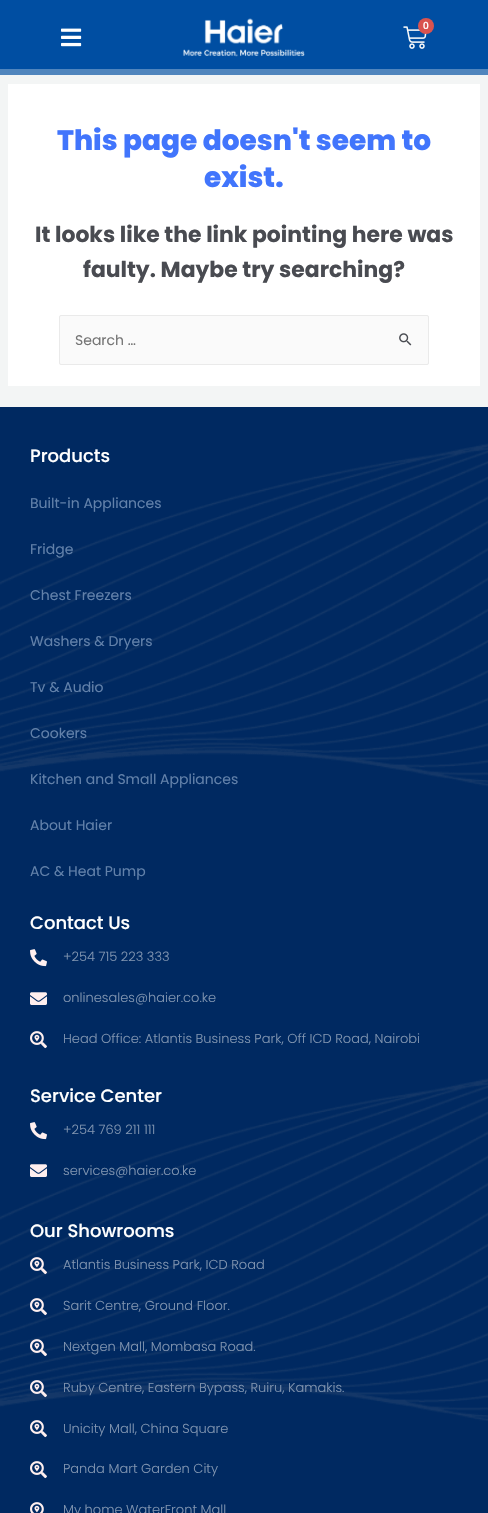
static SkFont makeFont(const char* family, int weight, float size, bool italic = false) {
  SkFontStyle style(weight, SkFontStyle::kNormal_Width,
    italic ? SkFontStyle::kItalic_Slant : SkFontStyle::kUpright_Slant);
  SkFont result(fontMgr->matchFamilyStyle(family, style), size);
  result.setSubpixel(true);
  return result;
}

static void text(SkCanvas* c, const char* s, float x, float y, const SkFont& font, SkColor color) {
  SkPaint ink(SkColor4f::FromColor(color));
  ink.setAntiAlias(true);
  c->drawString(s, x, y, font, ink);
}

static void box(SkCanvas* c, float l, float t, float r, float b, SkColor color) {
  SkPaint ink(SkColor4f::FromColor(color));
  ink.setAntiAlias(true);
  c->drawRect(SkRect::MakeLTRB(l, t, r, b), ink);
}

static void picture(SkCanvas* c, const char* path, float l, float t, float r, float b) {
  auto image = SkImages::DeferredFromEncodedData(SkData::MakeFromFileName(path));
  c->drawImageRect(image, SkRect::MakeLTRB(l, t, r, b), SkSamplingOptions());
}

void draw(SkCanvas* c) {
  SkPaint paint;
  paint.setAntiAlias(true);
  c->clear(0xfff3f5f5);
  box(c, 0, 69, 488, 75, 0xff5085bd);
  box(c, 0, 0, 488, 69, 0xff004ea2);
  picture(c, "img_01.png", 183, 18, 305, 57);
  picture(c, "img_02.png", 403, 26, 427, 49);
  paint.setColor(0xffd9534f);
  c->drawCircle(426, 26, 8, paint);
  SkFont face1 = makeFont("Open Sans", 600, 10);
  text(c, "0", 423, 29, face1, 0xffffffff);
  picture(c, "img_03.png", 61, 28, 82, 47);
  box(c, 8, 84, 480, 386, 0xffffffff);
  SkFont face2 = makeFont("Poppins", 800, 28);
  text(c, "This page doesn't seem to", 57, 150, face2, 0xff4175fc);
  text(c, "exist.", 204, 187, face2, 0xff4175fc);
  SkFont face3 = makeFont("Poppins", 700, 21.9f);
  text(c, "It looks like the link pointing here was", 35, 242, face3, 0xff494b51);
  text(c, "faulty. Maybe try searching?", 83, 277, face3, 0xff494b51);
  paint.setColor(0xfffafafa);
  c->drawRoundRect(SkRect::MakeLTRB(59.5f, 315.5f, 428.5f, 364.5f), 1.5f, 1.5f, paint);
  paint.setStyle(SkPaint::kStroke_Style);
  paint.setStrokeWidth(1);
  paint.setColor(0xffeaeaea);
  c->drawRoundRect(SkRect::MakeLTRB(59.5f, 315.5f, 428.5f, 364.5f), 1.5f, 1.5f, paint);
  SkFont face4 = makeFont("Poppins", 400, 14);
  text(c, "Search …", 75, 345, face4, 0xff757575);
  picture(c, "img_04.png", 399, 333, 412, 346);
  box(c, 0, 407, 488, 1513, 0xff002961);
  picture(c, "img_05.png", 0, 443, 488, 1421);
  SkFont face5 = makeFont("Poppins", 500, 18);
  text(c, "Products", 30, 462, face5, 0xffffffff);
  text(c, "Built-in Appliances", 30, 508, face4, 0xff6281aa);
  text(c, "Fridge", 30, 554, face4, 0xff6281aa);
  text(c, "Chest Freezers", 30, 600, face4, 0xff6281aa);
  text(c, "Washers & Dryers", 30, 646, face4, 0xff6281aa);
  text(c, "Tv & Audio", 30, 692, face4, 0xff6281aa);
  text(c, "Cookers", 30, 738, face4, 0xff6281aa);
  text(c, "Kitchen and Small Appliances", 30, 784, face4, 0xff6281aa);
  text(c, "About Haier", 30, 830, face4, 0xff6281aa);
  text(c, "AC & Heat Pump", 30, 876, face4, 0xff6281aa);
  text(c, "Contact Us", 30, 929, face5, 0xffffffff);
  picture(c, "img_06.png", 30, 949, 47, 967);
  SkFont face6 = makeFont("Poppins", 300, 13);
  text(c, "+254 715 223 333", 63, 961, face6, 0xff8094b0);
  picture(c, "img_07.png", 30, 992, 47, 1005);
  text(c, "onlinesales@haier.co.ke", 63, 1002, face6, 0xff8094b0);
  picture(c, "img_08.png", 30, 1031, 47, 1049);
  text(c, "Head Office: Atlantis Business Park, Off ICD Road, Nairobi", 63, 1043, face6, 0xff8094b0);
  text(c, "Service Center", 30, 1102, face5, 0xffffffff);
  picture(c, "img_06.png", 30, 1122, 47, 1140);
  text(c, "+254 769 211 111", 63, 1134, face6, 0xff8094b0);
  picture(c, "img_07.png", 30, 1164, 47, 1177);
  text(c, "services@haier.co.ke", 63, 1175, face6, 0xff8094b0);
  text(c, "Our Showrooms", 30, 1237, face5, 0xffffffff);
  picture(c, "img_09.png", 30, 1257, 47, 1275);
  text(c, "Atlantis Business Park, ICD Road", 63, 1269, face6, 0xff8094b0);
  picture(c, "img_10.png", 30, 1298, 47, 1316);
  text(c, "Sarit Centre, Ground Floor.", 63, 1310, face6, 0xff8094b0);
  picture(c, "img_11.png", 30, 1339, 47, 1357);
  text(c, "Nextgen Mall, Mombasa Road.", 63, 1351, face6, 0xff8094b0);
  picture(c, "img_12.png", 30, 1380, 47, 1398);
  text(c, "Ruby Centre, Eastern Bypass, Ruiru, Kamakis.", 63, 1392, face6, 0xff8094b0);
  picture(c, "img_08.png", 30, 1420, 47, 1438);
  text(c, "Unicity Mall, China Square", 63, 1433, face6, 0xff8094b0);
  picture(c, "img_08.png", 30, 1461, 47, 1479);
  text(c, "Panda Mart Garden City", 63, 1473, face6, 0xff8094b0);
  picture(c, "img_13.png", 30, 1502, 44, 1513);
  text(c, "My home WaterFront Mall", 63, 1514, face6, 0xff8094b0);
}
